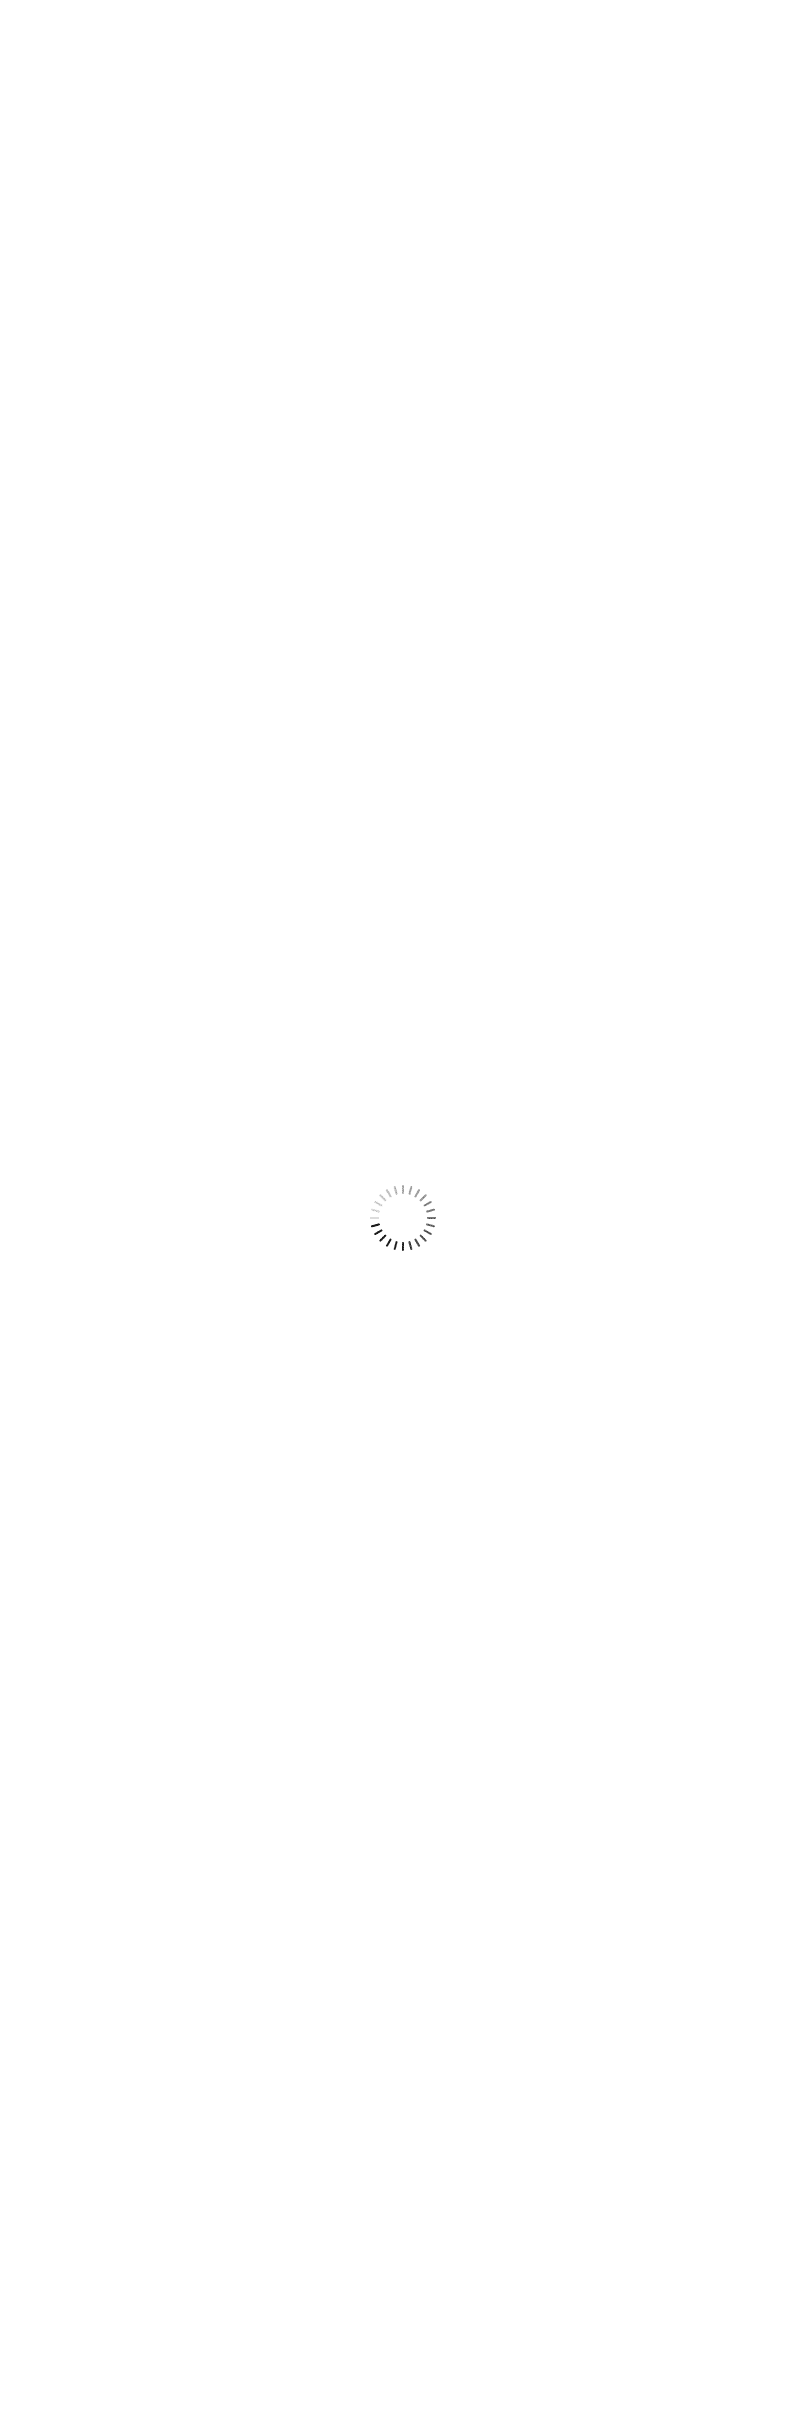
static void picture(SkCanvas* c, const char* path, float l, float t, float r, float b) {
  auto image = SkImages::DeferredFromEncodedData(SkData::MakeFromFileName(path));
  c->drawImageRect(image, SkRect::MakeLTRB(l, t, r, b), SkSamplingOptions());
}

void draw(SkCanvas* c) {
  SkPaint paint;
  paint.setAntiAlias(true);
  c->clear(0xffffffff);
  picture(c, "img_01.png", 370, 1185, 436, 1251);
}
